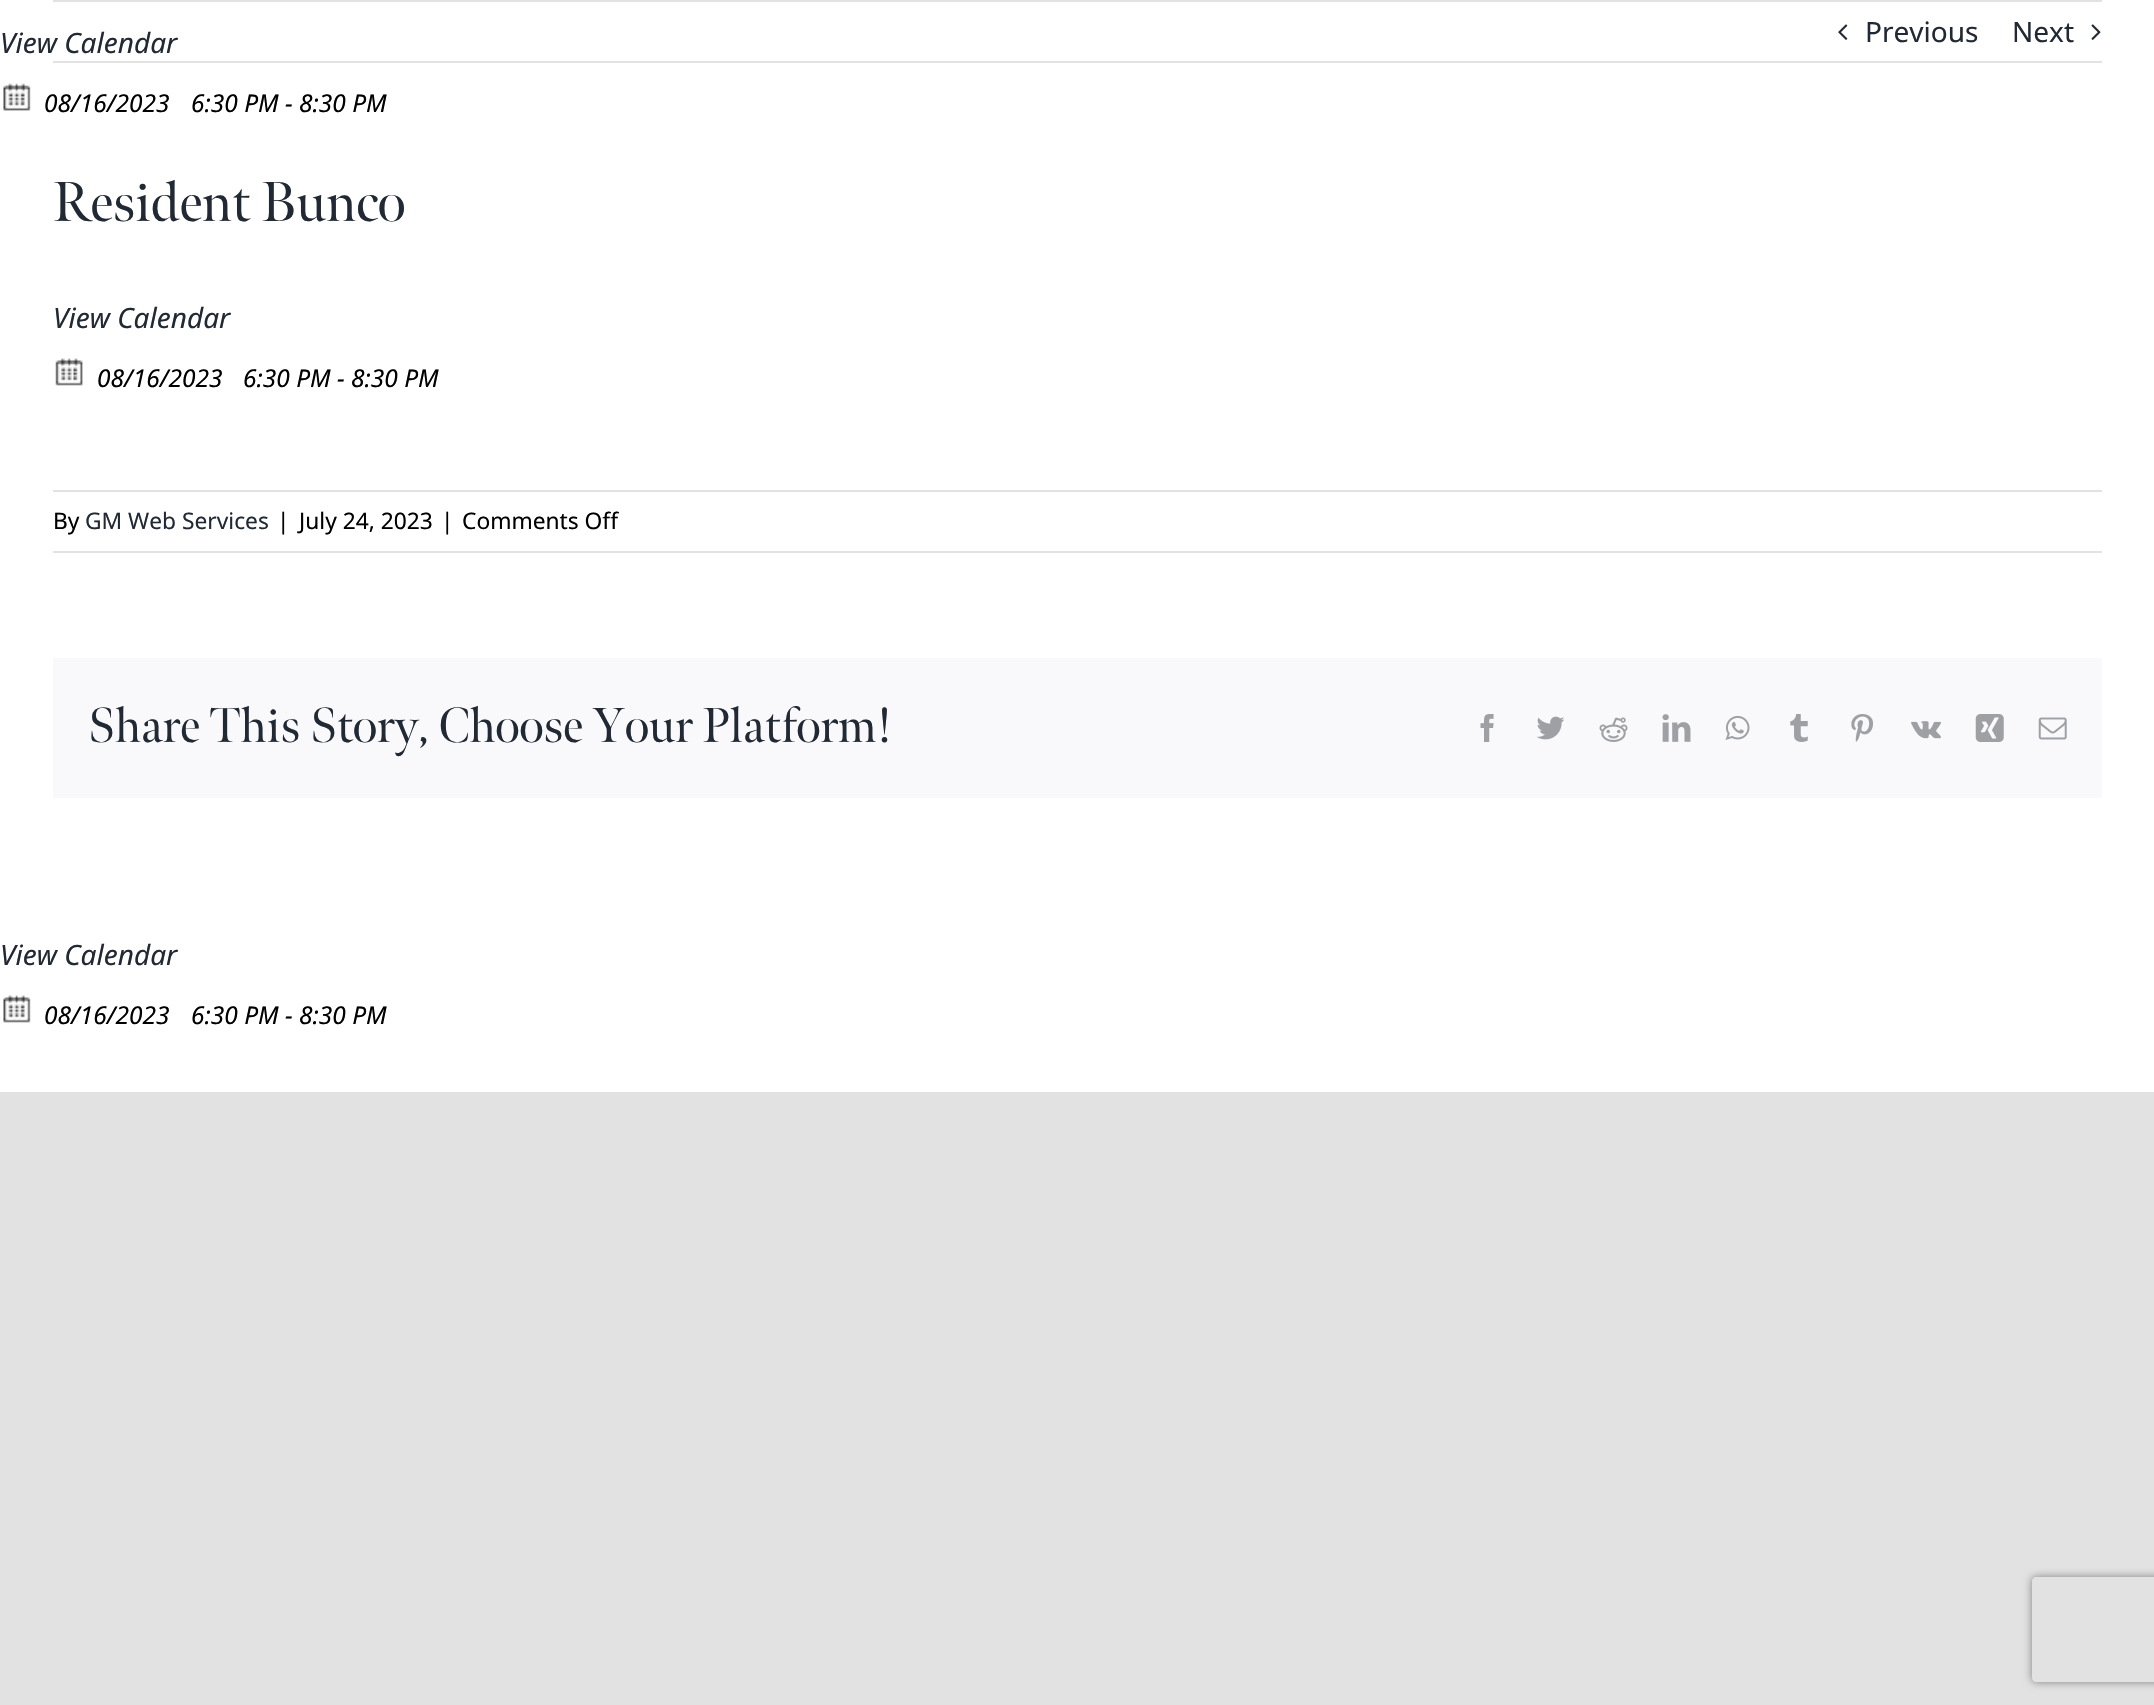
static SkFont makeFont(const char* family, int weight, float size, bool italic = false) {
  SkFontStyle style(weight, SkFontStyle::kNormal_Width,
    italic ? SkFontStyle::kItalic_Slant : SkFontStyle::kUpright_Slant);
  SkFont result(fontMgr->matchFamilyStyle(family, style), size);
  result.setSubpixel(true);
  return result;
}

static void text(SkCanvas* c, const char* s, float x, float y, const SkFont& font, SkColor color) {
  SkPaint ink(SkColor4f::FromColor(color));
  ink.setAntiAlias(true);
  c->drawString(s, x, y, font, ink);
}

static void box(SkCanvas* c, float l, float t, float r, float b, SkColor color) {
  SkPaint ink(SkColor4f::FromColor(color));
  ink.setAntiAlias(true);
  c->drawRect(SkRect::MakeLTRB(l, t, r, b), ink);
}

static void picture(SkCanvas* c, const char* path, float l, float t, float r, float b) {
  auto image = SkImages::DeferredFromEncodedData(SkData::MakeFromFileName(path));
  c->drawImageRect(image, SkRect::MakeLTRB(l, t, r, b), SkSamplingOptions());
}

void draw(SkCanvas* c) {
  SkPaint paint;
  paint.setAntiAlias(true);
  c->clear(0xffe2e2e2);
  box(c, 0, 0, 2154, 1092, 0xffffffff);
  box(c, 53, 0, 2102, 2, 0xffe2e2e2);
  box(c, 53, 61, 2102, 63, 0xffe2e2e2);
  picture(c, "img_01.png", 1838, 24, 1848, 40);
  SkFont face1 = makeFont("Noto Sans", 400, 28);
  text(c, "Previous", 1865, 42, face1, 0xff212934);
  text(c, "Next", 2012, 42, face1, 0xff212934);
  picture(c, "img_02.png", 2091, 24, 2101, 40);
  SkFont face2 = makeFont("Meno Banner", 400, 56);
  text(c, "Resident Bunco", 53, 221, face2, 0xff212934);
  SkFont face3 = makeFont("Noto Sans", 400, 28, true);
  text(c, "View Calendar", 53, 328, face3, 0xff212934);
  picture(c, "img_03.png", 55, 358, 83, 386);
  SkFont face4 = makeFont("Noto Sans", 400, 24.5f, true);
  text(c, "08/16/2023", 97, 387, face4, 0xff000000);
  text(c, "6:30 PM - 8:30 PM", 243, 387, face4, 0xff000000);
  box(c, 53, 490, 2102, 492, 0xffe2e2e2);
  box(c, 53, 551, 2102, 553, 0xffe2e2e2);
  SkFont face5 = makeFont("Noto Sans", 400, 22.75f);
  text(c, "By", 53, 529, face5, 0xff000000);
  text(c, "GM Web Services", 85, 529, face5, 0xff212934);
  text(c, "|", 277, 529, face5, 0xff000000);
  text(c, "July 24, 2023", 299, 529, face5, 0xff000000);
  text(c, "|", 441, 529, face5, 0xff000000);
  text(c, "Comments Off", 462, 529, face5, 0xff000000);
  box(c, 53, 658, 2102, 798, 0xfff9f9fb);
  SkFont face6 = makeFont("Meno Banner", 400, 49);
  text(c, "Share This Story, Choose Your Platform!", 88, 742, face6, 0xff212934);
  picture(c, "img_04.png", 1480, 714, 1494, 742);
  picture(c, "img_05.png", 1536, 716, 1565, 740);
  picture(c, "img_06.png", 1599, 717, 1628, 742);
  picture(c, "img_07.png", 1662, 714, 1691, 742);
  picture(c, "img_08.png", 1725, 715, 1750, 740);
  picture(c, "img_09.png", 1790, 714, 1808, 742);
  picture(c, "img_10.png", 1851, 714, 1873, 742);
  picture(c, "img_11.png", 1911, 721, 1941, 739);
  picture(c, "img_12.png", 1975, 714, 2004, 742);
  picture(c, "img_13.png", 2038, 717, 2067, 740);
  text(c, "View Calendar", 0, 53, face3, 0xff212934);
  picture(c, "img_14.png", 3, 83, 31, 111);
  text(c, "08/16/2023", 44, 112, face4, 0xff000000);
  text(c, "6:30 PM - 8:30 PM", 191, 112, face4, 0xff000000);
  text(c, "View Calendar", 0, 965, face3, 0xff212934);
  picture(c, "img_15.png", 3, 995, 31, 1023);
  text(c, "08/16/2023", 44, 1024, face4, 0xff000000);
  text(c, "6:30 PM - 8:30 PM", 191, 1024, face4, 0xff000000);
  c->save();
  c->clipPath(SkPathBuilder(SkPathFillType::kEvenOdd).moveTo(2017, 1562).lineTo(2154, 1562).lineTo(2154, 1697).lineTo(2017, 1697).close().moveTo(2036, 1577).lineTo(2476, 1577).cubicTo(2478, 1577, 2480, 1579, 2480, 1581).lineTo(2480, 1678).cubicTo(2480, 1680, 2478, 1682, 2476, 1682).lineTo(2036, 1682).cubicTo(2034, 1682, 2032, 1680, 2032, 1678).lineTo(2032, 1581).cubicTo(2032, 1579, 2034, 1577, 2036, 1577).close().detach(), true);
  paint.setColor(0xff808080);
  paint.setMaskFilter(SkMaskFilter::MakeBlur(kNormal_SkBlurStyle, 4.5f));
  c->drawRoundRect(SkRect::MakeLTRB(2032, 1577, 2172, 1682), 4, 4, paint);
  paint.setMaskFilter(nullptr);
  c->restore();
}
